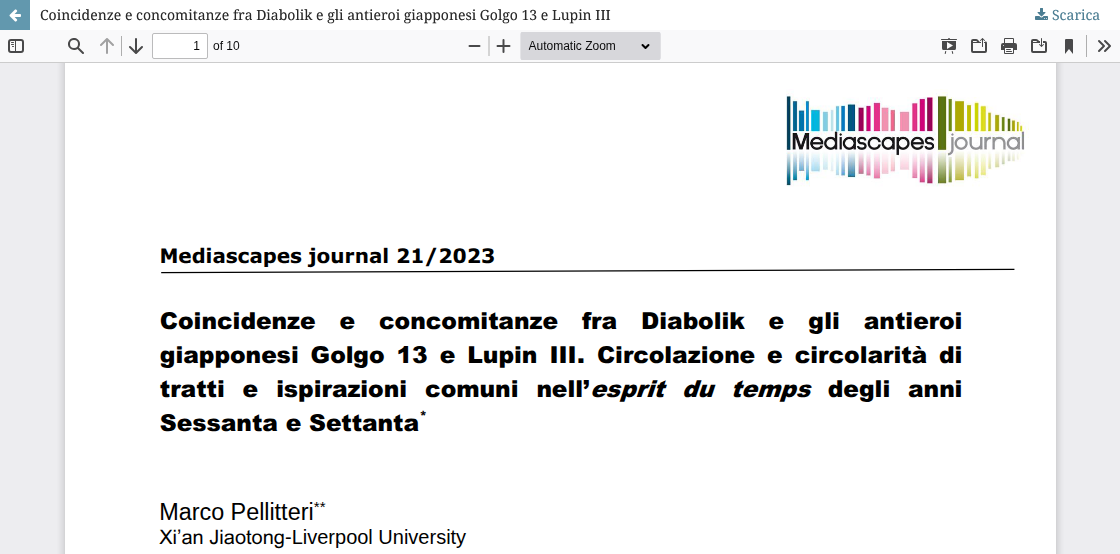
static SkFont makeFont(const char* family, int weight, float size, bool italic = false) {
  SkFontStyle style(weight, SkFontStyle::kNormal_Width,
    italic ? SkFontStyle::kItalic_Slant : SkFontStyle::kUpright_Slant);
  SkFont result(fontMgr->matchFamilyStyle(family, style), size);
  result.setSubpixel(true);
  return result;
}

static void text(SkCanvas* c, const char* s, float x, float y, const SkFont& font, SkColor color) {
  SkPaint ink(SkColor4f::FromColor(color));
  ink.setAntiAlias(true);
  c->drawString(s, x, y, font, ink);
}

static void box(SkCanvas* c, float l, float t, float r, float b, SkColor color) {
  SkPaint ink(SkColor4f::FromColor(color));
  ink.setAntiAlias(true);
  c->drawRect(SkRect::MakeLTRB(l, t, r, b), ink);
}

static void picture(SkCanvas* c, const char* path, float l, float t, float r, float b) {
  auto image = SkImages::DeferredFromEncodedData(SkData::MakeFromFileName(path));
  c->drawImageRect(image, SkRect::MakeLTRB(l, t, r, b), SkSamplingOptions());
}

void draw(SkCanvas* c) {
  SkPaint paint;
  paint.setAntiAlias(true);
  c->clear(0xffffffff);
  box(c, 0, 0, 30, 30, 0xff6298ae);
  picture(c, "img_01.png", 9, 9, 21, 22);
  SkFont face1 = makeFont("Noto Serif", 400, 14);
  text(c, "Coincidenze e concomitanze fra Diabolik e gli antieroi giapponesi Golgo 13 e Lupin III", 40, 20, face1, 0xff292929);
  picture(c, "img_02.png", 1035, 8, 1048, 20);
  text(c, "Scarica", 1052, 20, face1, 0xff4b7d92);
  picture(c, "img_03.png", 0, 30, 1120, 554);
}
